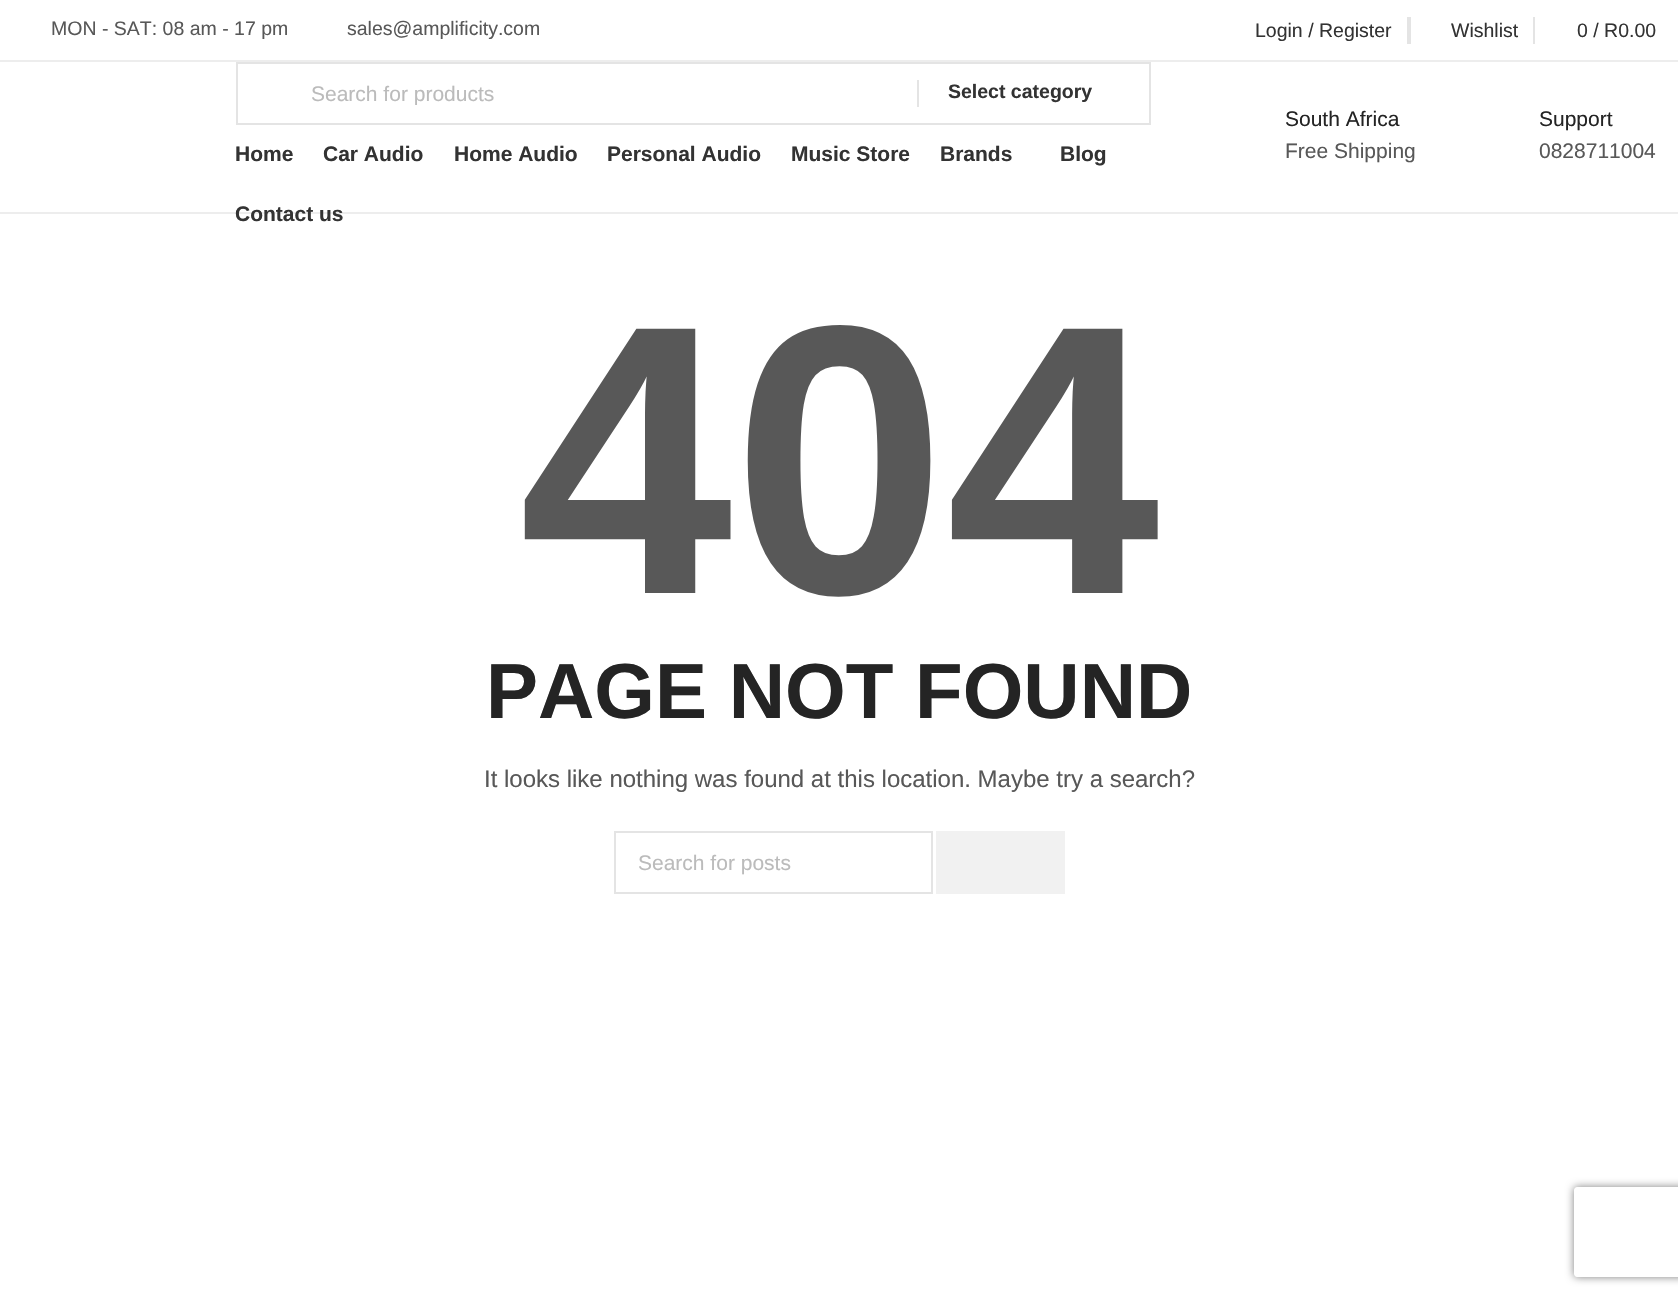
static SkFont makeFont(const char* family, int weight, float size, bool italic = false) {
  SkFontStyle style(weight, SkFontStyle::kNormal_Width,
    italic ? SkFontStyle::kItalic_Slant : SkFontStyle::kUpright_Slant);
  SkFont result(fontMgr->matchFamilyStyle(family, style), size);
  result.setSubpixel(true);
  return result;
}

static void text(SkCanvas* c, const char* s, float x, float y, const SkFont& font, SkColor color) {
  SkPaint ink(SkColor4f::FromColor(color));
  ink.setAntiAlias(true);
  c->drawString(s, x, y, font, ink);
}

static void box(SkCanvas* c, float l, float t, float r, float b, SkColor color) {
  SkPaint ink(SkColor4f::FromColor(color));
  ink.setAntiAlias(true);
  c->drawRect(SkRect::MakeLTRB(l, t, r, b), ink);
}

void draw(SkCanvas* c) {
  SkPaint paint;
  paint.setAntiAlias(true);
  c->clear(0xffffffff);
  box(c, 0, 60, 1678, 62, 0xffededed);
  SkFont face1 = makeFont("Liberation Sans", 400, 19.5f);
  text(c, "MON - SAT: 08 am - 17 pm", 51, 35, face1, 0xff585858);
  text(c, "sales@amplificity.com", 347, 35, face1, 0xff585858);
  text(c, "Login / Register", 1255, 37, face1, 0xff333333);
  box(c, 1407, 17, 1411, 44, 0xffe4e4e4);
  text(c, "Wishlist", 1451, 37, face1, 0xff333333);
  box(c, 1533, 17, 1535, 44, 0xffe4e4e4);
  text(c, "0 / R0.00", 1577, 37, face1, 0xff333333);
  box(c, 0, 212, 1678, 214, 0xffededed);
  paint.setStyle(SkPaint::kStroke_Style);
  paint.setStrokeWidth(2);
  paint.setColor(0xffe4e4e4);
  c->drawRect(SkRect::MakeLTRB(237, 63, 1150, 124), paint);
  c->save();
  c->clipRect(SkRect::MakeLTRB(312, 81, 894, 105));
  SkFont face2 = makeFont("Liberation Sans", 400, 21);
  text(c, "Search for products", 311, 101, face2, 0xffbbbbbb);
  c->restore();
  box(c, 917, 80, 919, 107, 0xffe4e4e4);
  SkFont face3 = makeFont("Liberation Sans", 700, 19.5f);
  text(c, "Select category", 948, 98, face3, 0xff333333);
  SkFont face4 = makeFont("Liberation Sans", 700, 21);
  text(c, "Home", 235, 161, face4, 0xff333333);
  text(c, "Car Audio", 323, 161, face4, 0xff333333);
  text(c, "Home Audio", 454, 161, face4, 0xff333333);
  text(c, "Personal Audio", 607, 161, face4, 0xff333333);
  text(c, "Music Store", 791, 161, face4, 0xff333333);
  text(c, "Brands", 940, 161, face4, 0xff333333);
  text(c, "Blog", 1060, 161, face4, 0xff333333);
  text(c, "Contact us", 235, 221, face4, 0xff333333);
  text(c, "South Africa", 1285, 126, face2, 0xff242424);
  text(c, "Free Shipping", 1285, 158, face2, 0xff585858);
  text(c, "Support", 1539, 126, face2, 0xff242424);
  text(c, "0828711004", 1539, 158, face2, 0xff585858);
  SkFont face5 = makeFont("Liberation Sans", 700, 384);
  text(c, "404", 519, 593, face5, 0xff585858);
  SkFont face6 = makeFont("Liberation Sans", 700, 78);
  text(c, "PAGE NOT FOUND", 486, 718, face6, 0xff242424);
  SkFont face7 = makeFont("Liberation Sans", 400, 24);
  text(c, "It looks like nothing was found at this location. Maybe try a search?", 484, 787, face7, 0xff585858);
  c->drawRect(SkRect::MakeLTRB(615, 832, 932, 893), paint);
  text(c, "Search for posts", 638, 870, face2, 0xffbbbbbb);
  box(c, 936, 831, 1065, 894, 0xfff1f1f1);
  c->save();
  c->clipPath(SkPathBuilder(SkPathFillType::kEvenOdd).moveTo(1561, 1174).lineTo(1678, 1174).lineTo(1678, 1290).lineTo(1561, 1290).close().moveTo(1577, 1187).lineTo(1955, 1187).cubicTo(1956.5f, 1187, 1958, 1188.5f, 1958, 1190).lineTo(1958, 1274).cubicTo(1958, 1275.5f, 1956.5f, 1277, 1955, 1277).lineTo(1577, 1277).cubicTo(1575.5f, 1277, 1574, 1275.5f, 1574, 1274).lineTo(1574, 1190).cubicTo(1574, 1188.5f, 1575.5f, 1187, 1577, 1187).close().detach(), true);
  paint.setStyle(SkPaint::kFill_Style);
  paint.setColor(0xff808080);
  paint.setMaskFilter(SkMaskFilter::MakeBlur(kNormal_SkBlurStyle, 4));
  c->drawRoundRect(SkRect::MakeLTRB(1574, 1187, 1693, 1277), 3, 3, paint);
  paint.setMaskFilter(nullptr);
  c->restore();
}
